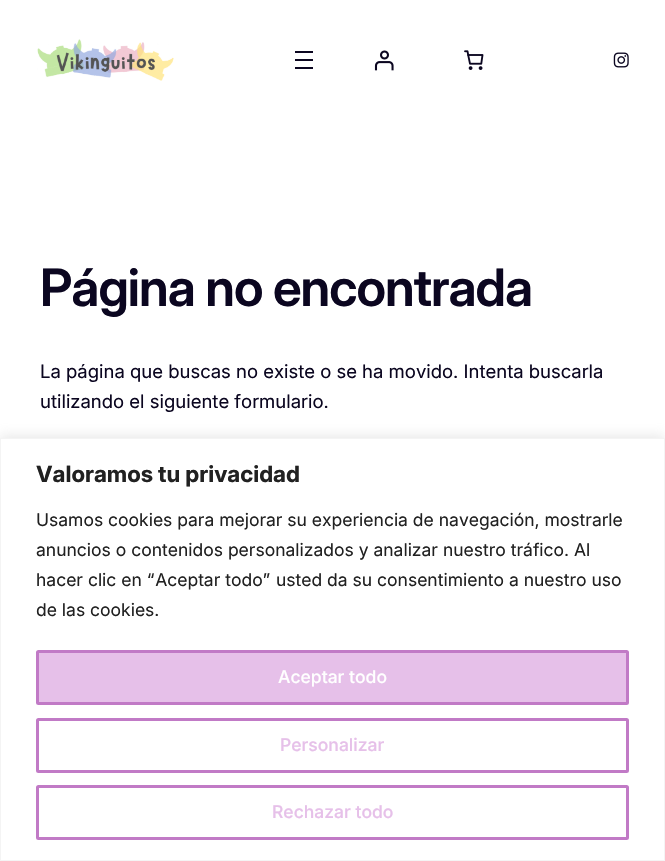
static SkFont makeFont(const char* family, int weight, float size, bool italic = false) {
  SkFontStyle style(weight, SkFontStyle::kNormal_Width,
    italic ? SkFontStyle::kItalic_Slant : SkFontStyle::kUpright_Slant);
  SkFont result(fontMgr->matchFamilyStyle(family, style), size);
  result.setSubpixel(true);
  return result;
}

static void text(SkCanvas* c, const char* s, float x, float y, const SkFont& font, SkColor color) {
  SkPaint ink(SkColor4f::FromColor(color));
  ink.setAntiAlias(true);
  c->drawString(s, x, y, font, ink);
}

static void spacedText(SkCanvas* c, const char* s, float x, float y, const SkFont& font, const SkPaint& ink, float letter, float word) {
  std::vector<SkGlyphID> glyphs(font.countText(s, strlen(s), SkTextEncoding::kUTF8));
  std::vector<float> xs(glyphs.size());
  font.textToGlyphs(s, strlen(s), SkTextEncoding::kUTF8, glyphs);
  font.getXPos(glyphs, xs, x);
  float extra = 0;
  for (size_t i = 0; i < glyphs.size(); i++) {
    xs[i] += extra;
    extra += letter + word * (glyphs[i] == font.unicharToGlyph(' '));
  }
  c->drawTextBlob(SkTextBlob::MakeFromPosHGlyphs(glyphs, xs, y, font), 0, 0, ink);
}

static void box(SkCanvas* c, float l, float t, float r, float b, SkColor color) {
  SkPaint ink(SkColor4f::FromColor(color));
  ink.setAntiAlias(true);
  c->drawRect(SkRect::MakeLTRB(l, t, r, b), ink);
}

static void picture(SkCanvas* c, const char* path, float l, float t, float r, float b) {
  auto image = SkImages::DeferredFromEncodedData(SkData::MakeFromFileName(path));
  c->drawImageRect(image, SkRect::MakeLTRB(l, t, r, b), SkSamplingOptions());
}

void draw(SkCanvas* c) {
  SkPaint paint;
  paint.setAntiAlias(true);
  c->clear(0xffffffff);
  picture(c, "img_01.png", 37, 39, 174, 81);
  box(c, 295, 51, 313, 53, 0xff0b0620);
  box(c, 295, 59, 313, 61, 0xff0b0620);
  box(c, 295, 67, 313, 69, 0xff0b0620);
  picture(c, "img_02.png", 374, 50, 394, 71);
  picture(c, "img_03.png", 464, 50, 484, 70);
  picture(c, "img_04.png", 613, 52, 629, 68);
  SkFont face1 = makeFont("Inter", 600, 51.6f);
  paint.setColor(0xff0b0620);
  spacedText(c, "Página no encontrada", 40, 306, face1, paint, -1, 0);
  SkFont face2 = makeFont("Inter", 400, 18.6f);
  text(c, "La página que buscas no existe o se ha movido. Intenta buscarla", 40, 378, face2, 0xff0b0620);
  text(c, "utilizando el siguiente formulario.", 40, 408, face2, 0xff0b0620);
  paint.setColor(0x4dacabab);
  paint.setMaskFilter(SkMaskFilter::MakeBlur(kNormal_SkBlurStyle, 6));
  c->drawRect(SkRect::MakeLTRB(0, 436, 665, 860), paint);
  paint.setMaskFilter(nullptr);
  paint.setColor(0xffffffff);
  c->drawRect(SkRect::MakeLTRB(0.5f, 438.5f, 664.5f, 860.5f), paint);
  paint.setStyle(SkPaint::kStroke_Style);
  paint.setStrokeWidth(1);
  paint.setColor(0xfff4f4f4);
  c->drawRect(SkRect::MakeLTRB(0.5f, 438.5f, 664.5f, 860.5f), paint);
  SkFont face3 = makeFont("Inter", 700, 22.5f);
  text(c, "Valoramos tu privacidad", 36, 482, face3, 0xff212121);
  SkFont face4 = makeFont("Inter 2", 400, 17.5f);
  text(c, "Usamos cookies para mejorar su experiencia de navegación, mostrarle", 36, 526, face4, 0xff212121);
  text(c, "anuncios o contenidos personalizados y analizar nuestro tráfico. Al", 36, 556, face4, 0xff212121);
  text(c, "hacer clic en “Aceptar todo” usted da su consentimiento a nuestro uso", 36, 586, face4, 0xff212121);
  text(c, "de las cookies.", 36, 616, face4, 0xff212121);
  paint.setStyle(SkPaint::kFill_Style);
  paint.setColor(0xffe6c0e9);
  c->drawRoundRect(SkRect::MakeLTRB(37.5f, 651.5f, 627.5f, 703.5f), 1, 1, paint);
  paint.setStyle(SkPaint::kStroke_Style);
  paint.setStrokeWidth(3);
  paint.setColor(0xffc17ac6);
  c->drawRoundRect(SkRect::MakeLTRB(37.5f, 651.5f, 627.5f, 703.5f), 1, 1, paint);
  SkFont face5 = makeFont("Inter", 500, 17.5f);
  text(c, "Aceptar todo", 278, 683, face5, 0xffffffff);
  c->drawRoundRect(SkRect::MakeLTRB(37.5f, 719.5f, 627.5f, 771.5f), 1, 1, paint);
  text(c, "Personalizar", 280, 751, face5, 0xffe6c0e9);
  c->drawRoundRect(SkRect::MakeLTRB(37.5f, 786.5f, 627.5f, 838.5f), 1, 1, paint);
  text(c, "Rechazar todo", 272, 818, face5, 0xffe6c0e9);
}
